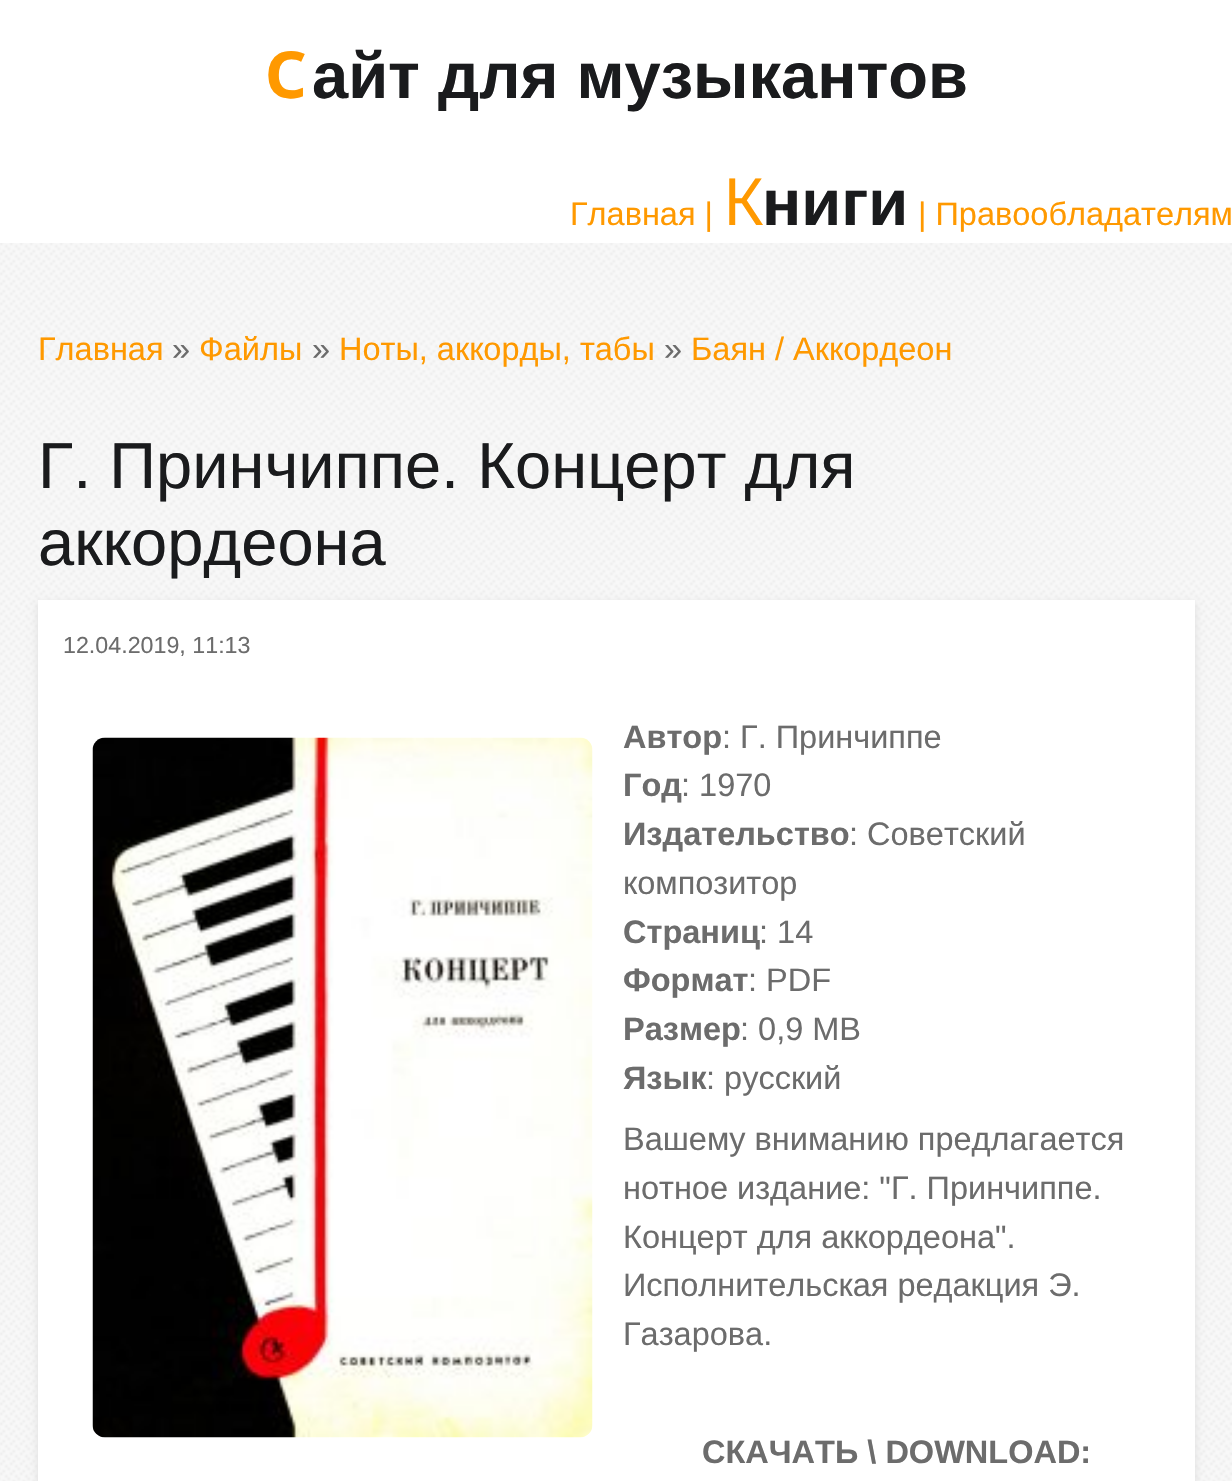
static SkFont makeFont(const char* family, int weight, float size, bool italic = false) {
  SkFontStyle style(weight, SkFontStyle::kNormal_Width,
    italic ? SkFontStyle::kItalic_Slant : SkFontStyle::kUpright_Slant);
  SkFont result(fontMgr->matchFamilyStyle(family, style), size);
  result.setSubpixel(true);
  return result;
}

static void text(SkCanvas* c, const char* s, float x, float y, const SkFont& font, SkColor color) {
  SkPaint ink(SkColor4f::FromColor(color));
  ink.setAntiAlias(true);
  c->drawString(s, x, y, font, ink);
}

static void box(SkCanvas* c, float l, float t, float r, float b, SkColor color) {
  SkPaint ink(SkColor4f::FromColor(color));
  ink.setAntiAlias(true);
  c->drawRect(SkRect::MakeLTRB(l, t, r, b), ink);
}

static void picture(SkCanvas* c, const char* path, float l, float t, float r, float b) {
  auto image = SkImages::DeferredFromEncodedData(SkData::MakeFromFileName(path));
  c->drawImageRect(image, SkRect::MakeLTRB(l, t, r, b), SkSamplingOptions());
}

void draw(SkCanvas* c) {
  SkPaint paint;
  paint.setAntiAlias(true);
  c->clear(0xffffffff);
  picture(c, "img_01.png", 0, 243, 1232, 1481);
  SkFont face1 = makeFont("Noto Sans", 700, 65);
  text(c, "С", 265, 98, face1, 0xffff9900);
  SkFont face2 = makeFont("Liberation Sans", 700, 65);
  text(c, "айт для музыкантов", 312, 98, face2, 0xff1a1b1d);
  SkFont face3 = makeFont("Liberation Sans", 400, 32.5f);
  text(c, "Главная |", 570, 225, face3, 0xffff9900);
  SkFont face4 = makeFont("Noto Sans", 400, 65);
  text(c, "К", 723, 225, face4, 0xffff9900);
  text(c, "ниги", 762, 225, face2, 0xff1a1b1d);
  text(c, "| Правообладателям", 918, 225, face3, 0xffff9900);
  text(c, "Главная", 38, 360, face3, 0xffff9900);
  text(c, "»", 172, 360, face3, 0xff6c6c6c);
  text(c, "Файлы", 199, 360, face3, 0xffff9900);
  text(c, "»", 312, 360, face3, 0xff6c6c6c);
  text(c, "Ноты, аккорды, табы", 339, 360, face3, 0xffff9900);
  text(c, "»", 664, 360, face3, 0xff6c6c6c);
  text(c, "Баян / Аккордеон", 691, 360, face3, 0xffff9900);
  SkFont face5 = makeFont("Liberation Sans", 400, 65);
  text(c, "Г. Принчиппе. Концерт для", 38, 488, face5, 0xff1a1b1d);
  text(c, "аккордеона", 38, 565, face5, 0xff1a1b1d);
  paint.setColor(0xffdddddd);
  paint.setMaskFilter(SkMaskFilter::MakeBlur(kNormal_SkBlurStyle, 4));
  c->drawRect(SkRect::MakeLTRB(38, 603, 1195, 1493), paint);
  paint.setMaskFilter(nullptr);
  box(c, 38, 600, 1195, 1481, 0xffffffff);
  SkFont face6 = makeFont("Liberation Sans", 400, 23.25f);
  text(c, "12.04.2019, 11:13", 63, 653, face6, 0xff6c6c6c);
  picture(c, "img_02.png", 92, 737, 593, 1438);
  SkFont face7 = makeFont("Liberation Sans", 700, 32.5f);
  text(c, "Автор", 623, 748, face7, 0xff6c6c6c);
  text(c, ": Г. Принчиппе", 722, 748, face3, 0xff6c6c6c);
  text(c, "Год", 623, 796, face7, 0xff6c6c6c);
  text(c, ": 1970", 681, 796, face3, 0xff6c6c6c);
  text(c, "Издательство", 623, 845, face7, 0xff6c6c6c);
  text(c, ": Советский", 849, 845, face3, 0xff6c6c6c);
  text(c, "композитор", 623, 894, face3, 0xff6c6c6c);
  text(c, "Страниц", 623, 943, face7, 0xff6c6c6c);
  text(c, ": 14", 759, 943, face3, 0xff6c6c6c);
  text(c, "Формат", 623, 991, face7, 0xff6c6c6c);
  text(c, ": PDF", 748, 991, face3, 0xff6c6c6c);
  text(c, "Размер", 623, 1040, face7, 0xff6c6c6c);
  text(c, ": 0,9 МВ", 740, 1040, face3, 0xff6c6c6c);
  text(c, "Язык", 623, 1089, face7, 0xff6c6c6c);
  text(c, ": русский", 706, 1089, face3, 0xff6c6c6c);
  text(c, "Вашему вниманию предлагается", 623, 1150, face3, 0xff6c6c6c);
  text(c, "нотное издание: \"Г. Принчиппе.", 623, 1199, face3, 0xff6c6c6c);
  text(c, "Концерт для аккордеона\".", 623, 1248, face3, 0xff6c6c6c);
  text(c, "Исполнительская редакция Э.", 623, 1296, face3, 0xff6c6c6c);
  text(c, "Газарова.", 623, 1345, face3, 0xff6c6c6c);
  text(c, "СКАЧАТЬ \\ DOWNLOAD:", 702, 1463, face7, 0xff6c6c6c);
}
